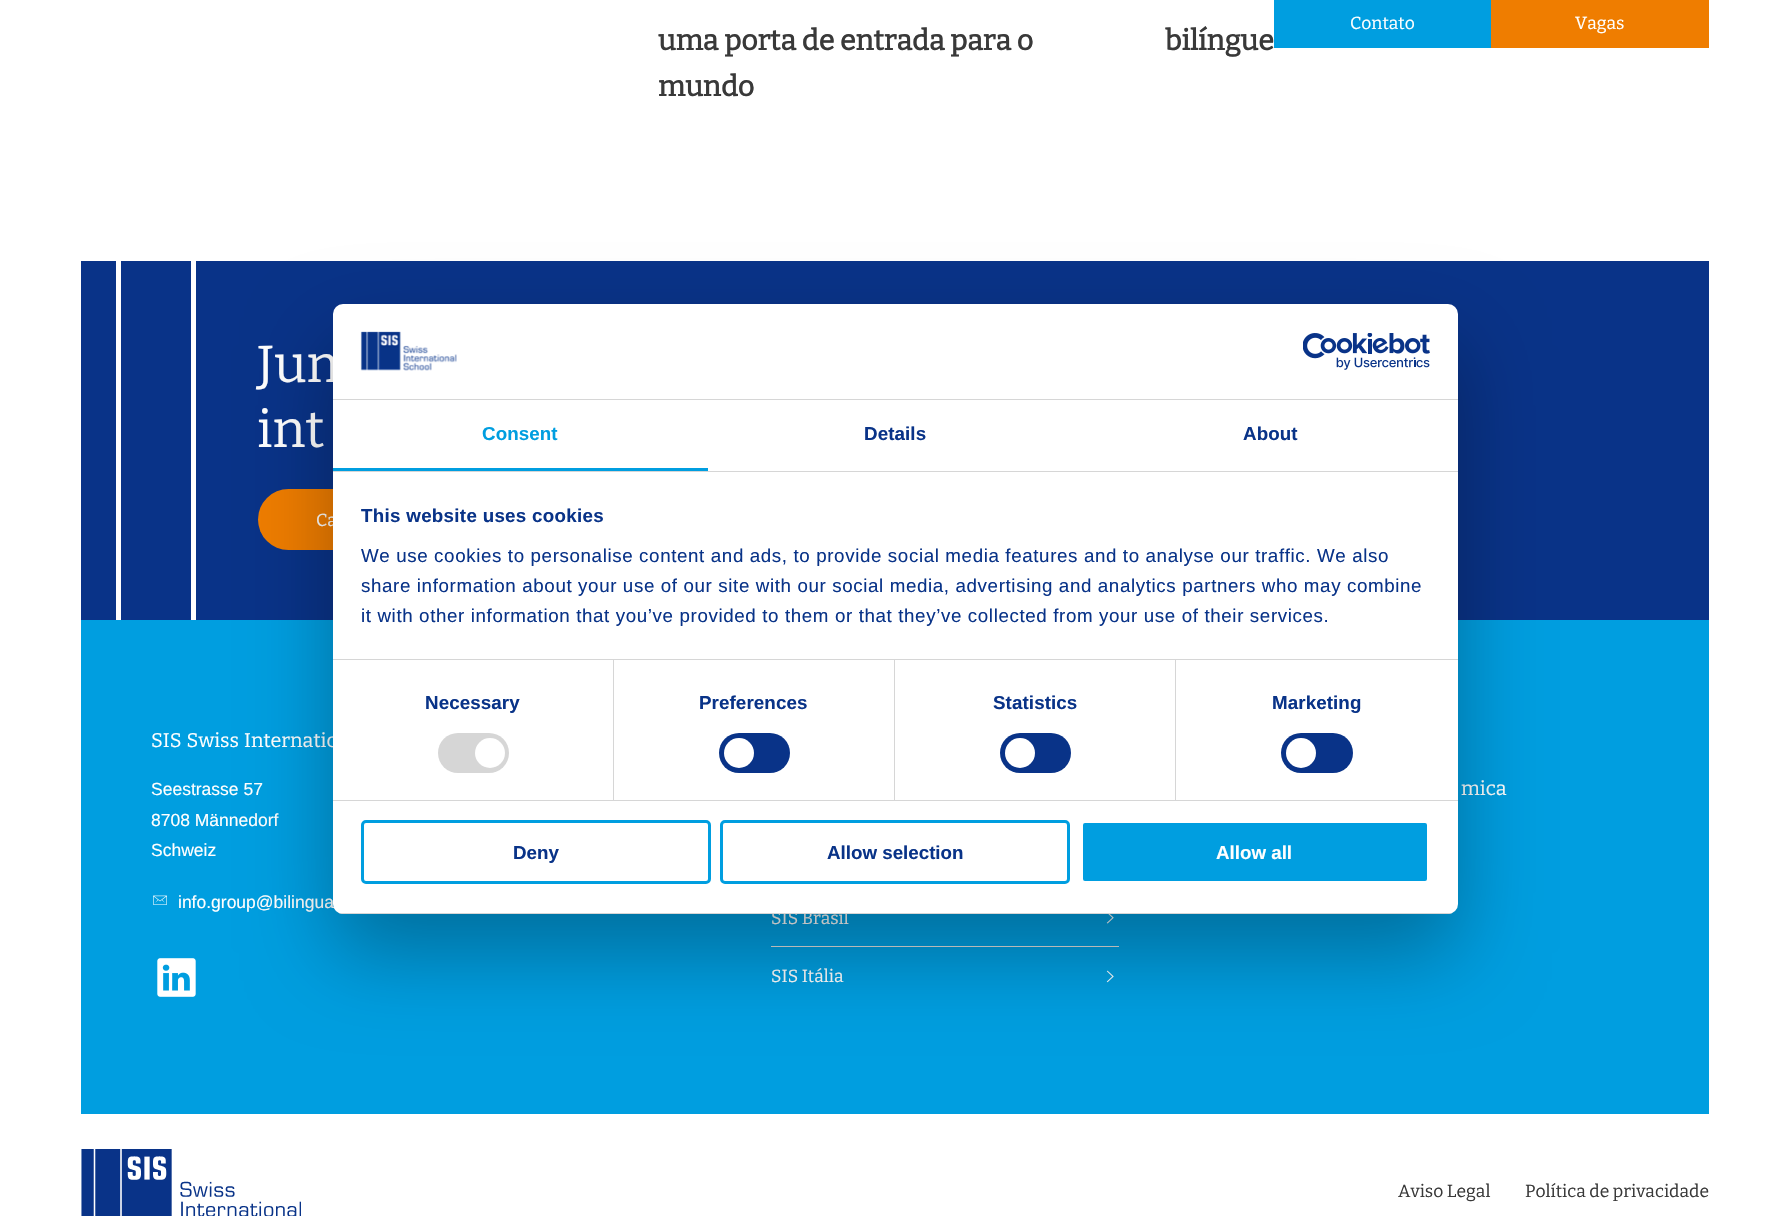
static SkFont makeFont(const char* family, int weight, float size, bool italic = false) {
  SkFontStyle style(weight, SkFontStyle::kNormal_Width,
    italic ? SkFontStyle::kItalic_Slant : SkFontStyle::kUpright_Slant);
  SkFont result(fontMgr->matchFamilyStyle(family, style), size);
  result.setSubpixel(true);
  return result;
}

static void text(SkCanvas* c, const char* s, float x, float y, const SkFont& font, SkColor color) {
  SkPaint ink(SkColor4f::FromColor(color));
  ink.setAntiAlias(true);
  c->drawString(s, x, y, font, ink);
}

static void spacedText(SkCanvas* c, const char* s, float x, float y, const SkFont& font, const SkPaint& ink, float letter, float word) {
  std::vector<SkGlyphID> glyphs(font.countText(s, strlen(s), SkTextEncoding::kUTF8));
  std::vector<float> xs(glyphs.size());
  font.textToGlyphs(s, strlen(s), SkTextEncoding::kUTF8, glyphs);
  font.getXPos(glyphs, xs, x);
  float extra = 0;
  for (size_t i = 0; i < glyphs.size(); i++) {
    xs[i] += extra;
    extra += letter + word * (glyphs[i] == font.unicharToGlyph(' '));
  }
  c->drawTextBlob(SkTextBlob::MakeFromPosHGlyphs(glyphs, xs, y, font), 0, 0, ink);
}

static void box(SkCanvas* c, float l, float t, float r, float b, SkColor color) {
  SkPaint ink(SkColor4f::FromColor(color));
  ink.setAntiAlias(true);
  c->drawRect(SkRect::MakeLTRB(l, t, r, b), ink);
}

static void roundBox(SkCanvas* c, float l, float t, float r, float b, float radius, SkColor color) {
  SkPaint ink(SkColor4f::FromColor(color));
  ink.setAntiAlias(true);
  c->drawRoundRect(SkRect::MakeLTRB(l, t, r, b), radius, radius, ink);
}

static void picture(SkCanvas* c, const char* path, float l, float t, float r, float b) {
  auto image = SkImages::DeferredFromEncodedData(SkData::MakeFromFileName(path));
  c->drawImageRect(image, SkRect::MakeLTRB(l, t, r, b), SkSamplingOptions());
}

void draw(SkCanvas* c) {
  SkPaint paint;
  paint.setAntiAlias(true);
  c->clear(0xffffffff);
  box(c, 1274, 0, 1491, 48, 0xff009ee0);
  SkFont face1 = makeFont("Bitter", 400, 17.5f);
  text(c, "Contato", 1350, 29, face1, 0xffffffff);
  box(c, 1491, 0, 1709, 48, 0xffef7d00);
  text(c, "Vagas", 1575, 29, face1, 0xffffffff);
  SkFont face2 = makeFont("Bitter", 700, 28.5f);
  text(c, "uma porta de entrada para o", 658, 50, face2, 0xff393939);
  text(c, "mundo", 658, 96, face2, 0xff393939);
  text(c, "bilíngue", 1165, 50, face2, 0xff393939);
  box(c, 81, 261, 1709, 620, 0xff093388);
  box(c, 116, 261, 121, 620, 0xffffffff);
  box(c, 191, 261, 196, 620, 0xffffffff);
  SkFont face3 = makeFont("Bitter", 400, 52);
  text(c, "Jun", 257, 382, face3, 0xffffffff);
  text(c, "int", 257, 447, face3, 0xffffffff);
  roundBox(c, 258, 489, 528, 550, 30.5f, 0xffef7d00);
  text(c, "Ca", 316, 526, face1, 0xffffffff);
  box(c, 81, 620, 1709, 1114, 0xff009ee0);
  SkFont face4 = makeFont("Bitter", 400, 19.75f);
  paint.setColor(0xffffffff);
  spacedText(c, "SIS Swiss Internatio", 151, 747, face4, paint, 0, 1);
  SkFont face5 = makeFont("Liberation Sans", 400, 17.5f);
  text(c, "Seestrasse 57", 151, 795, face5, 0xffffffff);
  text(c, "8708 Männedorf", 151, 826, face5, 0xffffffff);
  text(c, "Schweiz", 151, 856, face5, 0xffffffff);
  picture(c, "img_01.png", 153, 895, 167, 905);
  text(c, "info.group@bilingua", 178, 908, face5, 0xffffffff);
  picture(c, "img_02.png", 157, 958, 196, 997);
  spacedText(c, "mica", 1461, 795, face4, paint, 0, 1);
  box(c, 771, 946, 1119, 947, 0xffdedede);
  text(c, "SIS Brasil", 771, 924, face1, 0xffffffff);
  picture(c, "img_03.png", 1106, 914, 1114, 924);
  text(c, "SIS Itália", 771, 982, face1, 0xffffffff);
  picture(c, "img_04.png", 1106, 970, 1114, 983);
  picture(c, "img_05.png", 81, 1149, 301, 1216);
  text(c, "Aviso Legal", 1398, 1197, face1, 0xff393939);
  text(c, "Política de privacidade", 1525, 1197, face1, 0xff393939);
  paint.setColor(0x4d000000);
  paint.setMaskFilter(SkMaskFilter::MakeBlur(kNormal_SkBlurStyle, 42.5f));
  c->drawRoundRect(SkRect::MakeLTRB(333, 344, 1458, 954), 10, 10, paint);
  paint.setMaskFilter(nullptr);
  roundBox(c, 333, 304, 1458, 914, 10, 0xffffffff);
  box(c, 333, 399, 1458, 400, 0xffd6d6d6);
  picture(c, "img_06.png", 360, 331, 457, 371);
  picture(c, "img_07.png", 1303, 333, 1430, 370);
  box(c, 333, 471, 1458, 472, 0xffd6d6d6);
  box(c, 333, 468, 708, 471, 0xff009ee0);
  SkFont face6 = makeFont("Liberation Sans", 700, 18.75f);
  paint.setColor(0xff009ee0);
  spacedText(c, "Consent", 482, 440, face6, paint, 0.1f, 0);
  paint.setColor(0xff093388);
  spacedText(c, "Details", 864, 440, face6, paint, 0.1f, 0);
  spacedText(c, "About", 1243, 440, face6, paint, 0.1f, 0);
  box(c, 333, 659, 1458, 660, 0xffd6d6d6);
  spacedText(c, "This website uses cookies", 361, 522, face6, paint, 0.3f, 0);
  SkFont face7 = makeFont("Liberation Sans", 400, 18.75f);
  spacedText(c, "We use cookies to personalise content and ads, to provide social media features and to analyse our traffic. We also", 361, 562, face7, paint, 0.62f, 0);
  spacedText(c, "share information about your use of our site with our social media, advertising and analytics partners who may combine", 361, 592, face7, paint, 0.62f, 0);
  spacedText(c, "it with other information that you’ve provided to them or that they’ve collected from your use of their services.", 361, 622, face7, paint, 0.62f, 0);
  box(c, 333, 800, 1458, 801, 0xffd6d6d6);
  box(c, 613, 660, 614, 800, 0xffd6d6d6);
  spacedText(c, "Necessary", 425, 709, face6, paint, 0.1f, 0);
  roundBox(c, 438, 733, 509, 773, 20, 0xffd6d6d6);
  paint.setColor(0xffffffff);
  c->drawCircle(490, 753, 15, paint);
  box(c, 894, 660, 895, 800, 0xffd6d6d6);
  paint.setColor(0xff093388);
  spacedText(c, "Preferences", 699, 709, face6, paint, 0.1f, 0);
  roundBox(c, 719, 733, 790, 773, 20, 0xff093388);
  paint.setColor(0xffffffff);
  c->drawCircle(739, 753, 15, paint);
  box(c, 1175, 660, 1176, 800, 0xffd6d6d6);
  paint.setColor(0xff093388);
  spacedText(c, "Statistics", 993, 709, face6, paint, 0.1f, 0);
  roundBox(c, 1000, 733, 1071, 773, 20, 0xff093388);
  paint.setColor(0xffffffff);
  c->drawCircle(1020, 753, 15, paint);
  paint.setColor(0xff093388);
  spacedText(c, "Marketing", 1272, 709, face6, paint, 0.1f, 0);
  roundBox(c, 1281, 733, 1353, 773, 20, 0xff093388);
  paint.setColor(0xffffffff);
  c->drawCircle(1301, 753, 15, paint);
  c->save();
  c->clipPath(SkPathBuilder().moveTo(343, 304).lineTo(1448, 304).cubicTo(1453.5f, 304, 1458, 308.5f, 1458, 314).lineTo(1458, 904).cubicTo(1458, 909.5f, 1453.5f, 914, 1448, 914).lineTo(343, 914).cubicTo(337.5f, 914, 333, 909.5f, 333, 904).lineTo(333, 314).cubicTo(333, 308.5f, 337.5f, 304, 343, 304).close().detach(), true);
  box(c, 333, 913, 1458, 914, 0xffd6d6d6);
  c->restore();
  paint.setStyle(SkPaint::kStroke_Style);
  paint.setStrokeWidth(3);
  paint.setColor(0xff009ee0);
  c->drawRoundRect(SkRect::MakeLTRB(362.5f, 821.5f, 709.5f, 882.5f), 3.5f, 3.5f, paint);
  text(c, "Deny", 513, 859, face6, 0xff093388);
  c->drawRoundRect(SkRect::MakeLTRB(721.5f, 821.5f, 1068.5f, 882.5f), 3.5f, 3.5f, paint);
  text(c, "Allow selection", 827, 859, face6, 0xff093388);
  paint.setStyle(SkPaint::kFill_Style);
  c->drawRoundRect(SkRect::MakeLTRB(1081.5f, 821.5f, 1428.5f, 882.5f), 3.5f, 3.5f, paint);
  paint.setStyle(SkPaint::kStroke_Style);
  paint.setColor(0xffffffff);
  c->drawRoundRect(SkRect::MakeLTRB(1081.5f, 821.5f, 1428.5f, 882.5f), 3.5f, 3.5f, paint);
  text(c, "Allow all", 1216, 859, face6, 0xffffffff);
}
